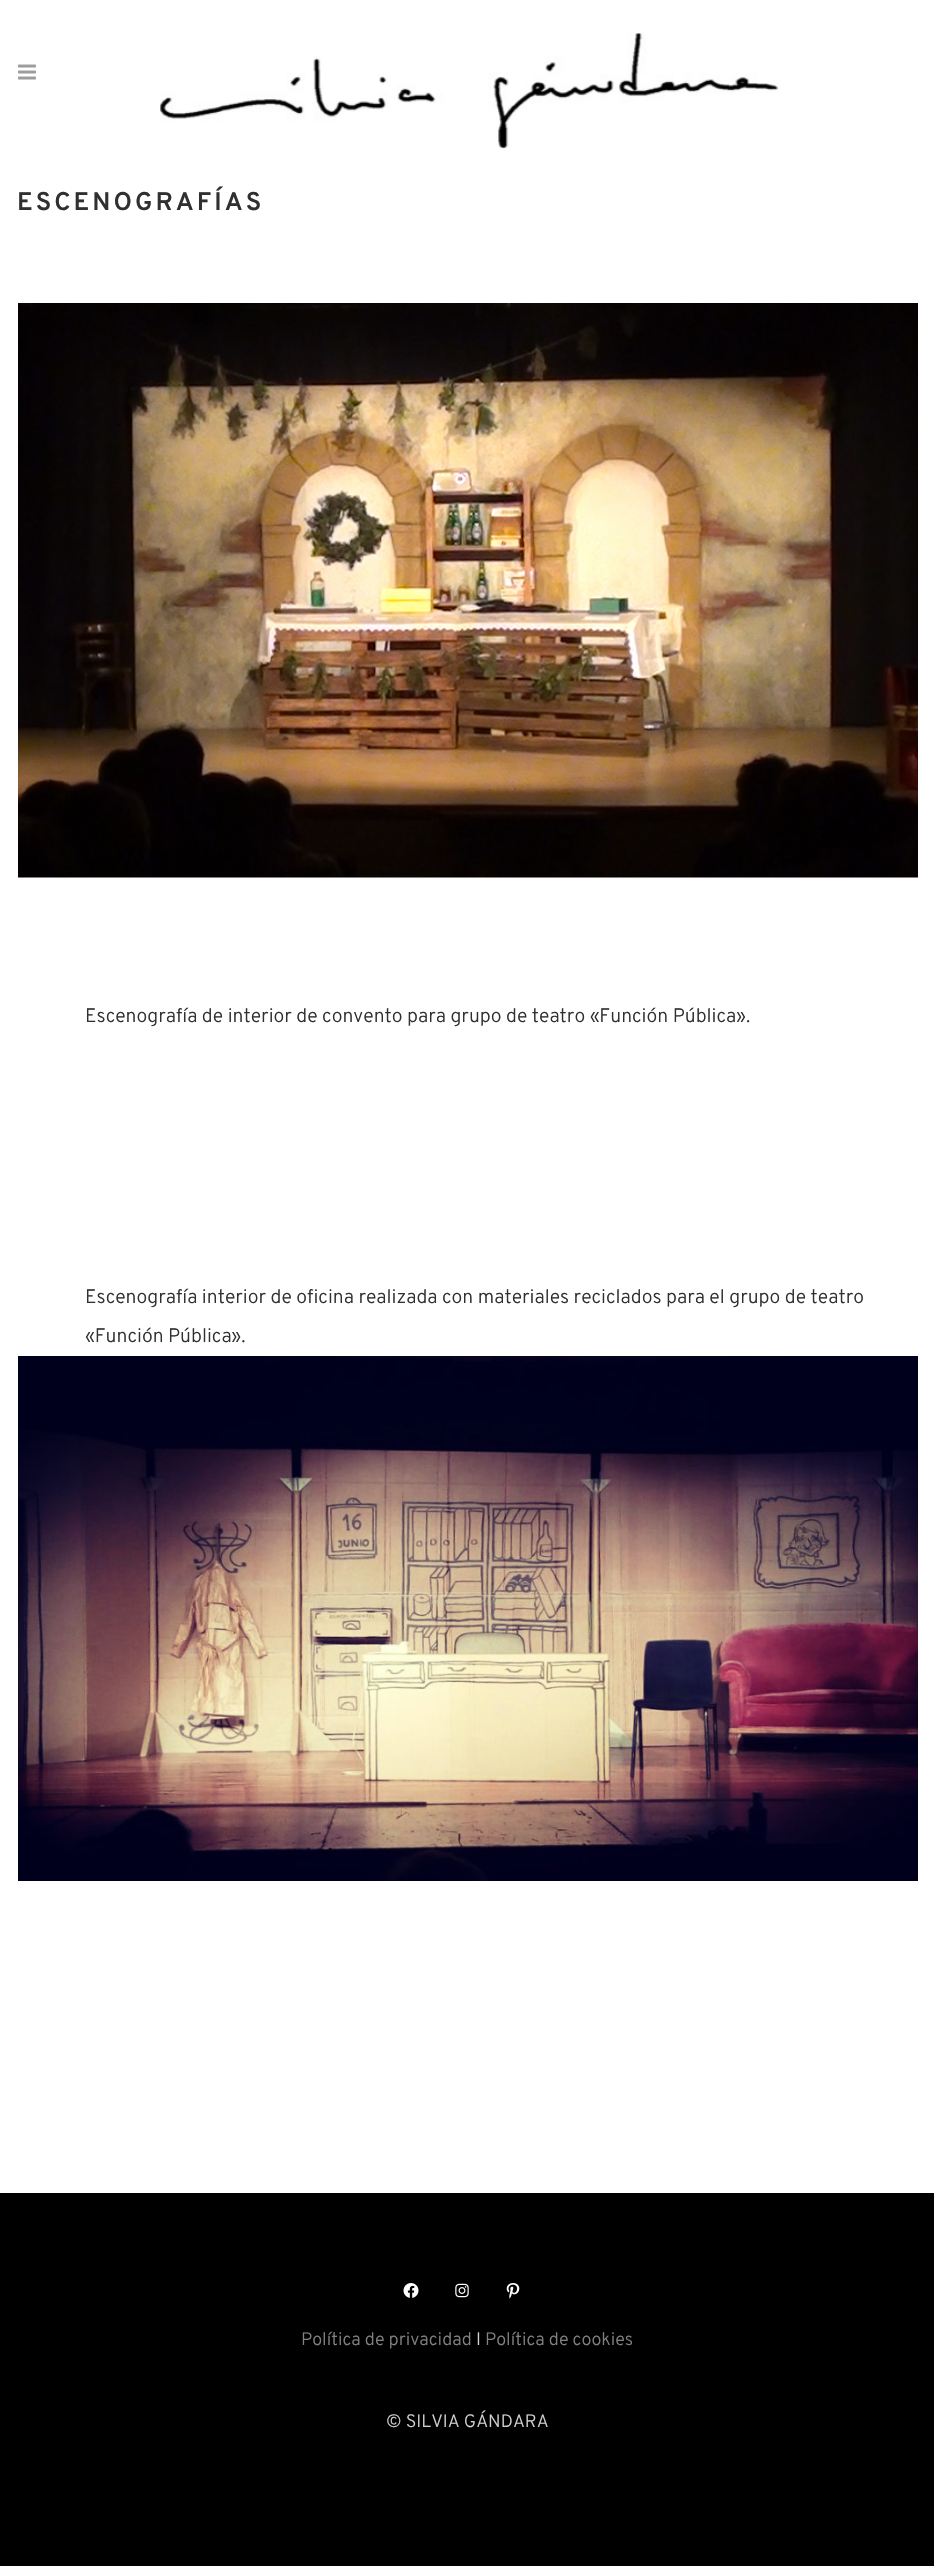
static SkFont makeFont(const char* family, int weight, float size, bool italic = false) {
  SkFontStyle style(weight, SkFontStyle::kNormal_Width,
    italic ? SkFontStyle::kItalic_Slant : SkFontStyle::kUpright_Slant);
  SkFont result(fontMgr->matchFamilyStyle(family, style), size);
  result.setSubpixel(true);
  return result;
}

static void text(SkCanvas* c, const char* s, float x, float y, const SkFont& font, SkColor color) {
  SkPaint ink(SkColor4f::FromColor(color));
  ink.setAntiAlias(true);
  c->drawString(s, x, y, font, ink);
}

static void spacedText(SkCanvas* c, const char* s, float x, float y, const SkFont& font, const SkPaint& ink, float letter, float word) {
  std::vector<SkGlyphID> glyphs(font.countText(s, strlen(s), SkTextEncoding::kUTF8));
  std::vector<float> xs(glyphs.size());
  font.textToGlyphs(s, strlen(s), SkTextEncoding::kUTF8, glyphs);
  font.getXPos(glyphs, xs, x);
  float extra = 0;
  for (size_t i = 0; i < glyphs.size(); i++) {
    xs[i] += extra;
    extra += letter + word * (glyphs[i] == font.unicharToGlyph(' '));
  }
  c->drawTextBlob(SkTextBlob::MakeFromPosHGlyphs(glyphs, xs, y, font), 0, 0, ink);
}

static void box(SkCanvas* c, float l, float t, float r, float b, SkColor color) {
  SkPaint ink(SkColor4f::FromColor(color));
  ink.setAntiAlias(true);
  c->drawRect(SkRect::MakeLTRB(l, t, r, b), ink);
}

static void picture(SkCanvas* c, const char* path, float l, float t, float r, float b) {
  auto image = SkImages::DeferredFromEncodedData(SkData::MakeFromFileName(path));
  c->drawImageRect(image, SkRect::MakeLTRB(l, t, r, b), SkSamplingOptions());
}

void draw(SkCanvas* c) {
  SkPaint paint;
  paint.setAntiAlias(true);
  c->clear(0xffffffff);
  picture(c, "img_01.png", 18, 64, 36, 80);
  picture(c, "img_02.png", 160, 33, 779, 149);
  SkFont face1 = makeFont("Overpass", 600, 25.5f);
  paint.setColor(0xff303030);
  spacedText(c, "ESCENOGRAFÍAS", 17, 210, face1, paint, 3, 0);
  picture(c, "img_03.png", 18, 303, 918, 878);
  SkFont face2 = makeFont("Overpass", 300, 19.5f);
  text(c, "Escenografía de interior de convento para grupo de teatro «Función Pública».", 85, 1022, face2, 0xff303030);
  text(c, "Escenografía interior de oficina realizada con materiales reciclados para el grupo de teatro", 85, 1303, face2, 0xff303030);
  text(c, "«Función Pública».", 85, 1342, face2, 0xff303030);
  picture(c, "img_04.png", 18, 1356, 918, 1881);
  box(c, 0, 2193, 934, 2566, 0xff000000);
  picture(c, "img_05.png", 403, 2283, 419, 2298);
  picture(c, "img_06.png", 455, 2283, 469, 2298);
  picture(c, "img_07.png", 506, 2283, 520, 2299);
  SkFont face3 = makeFont("Overpass", 300, 18);
  text(c, "Política de privacidad", 301, 2345, face3, 0xff818181);
  text(c, "I", 476, 2345, face3, 0xffd1d1d1);
  text(c, "Política de cookies", 485, 2345, face3, 0xff818181);
  text(c, "© SILVIA GÁNDARA", 386, 2427, face3, 0xffd1d1d1);
}
